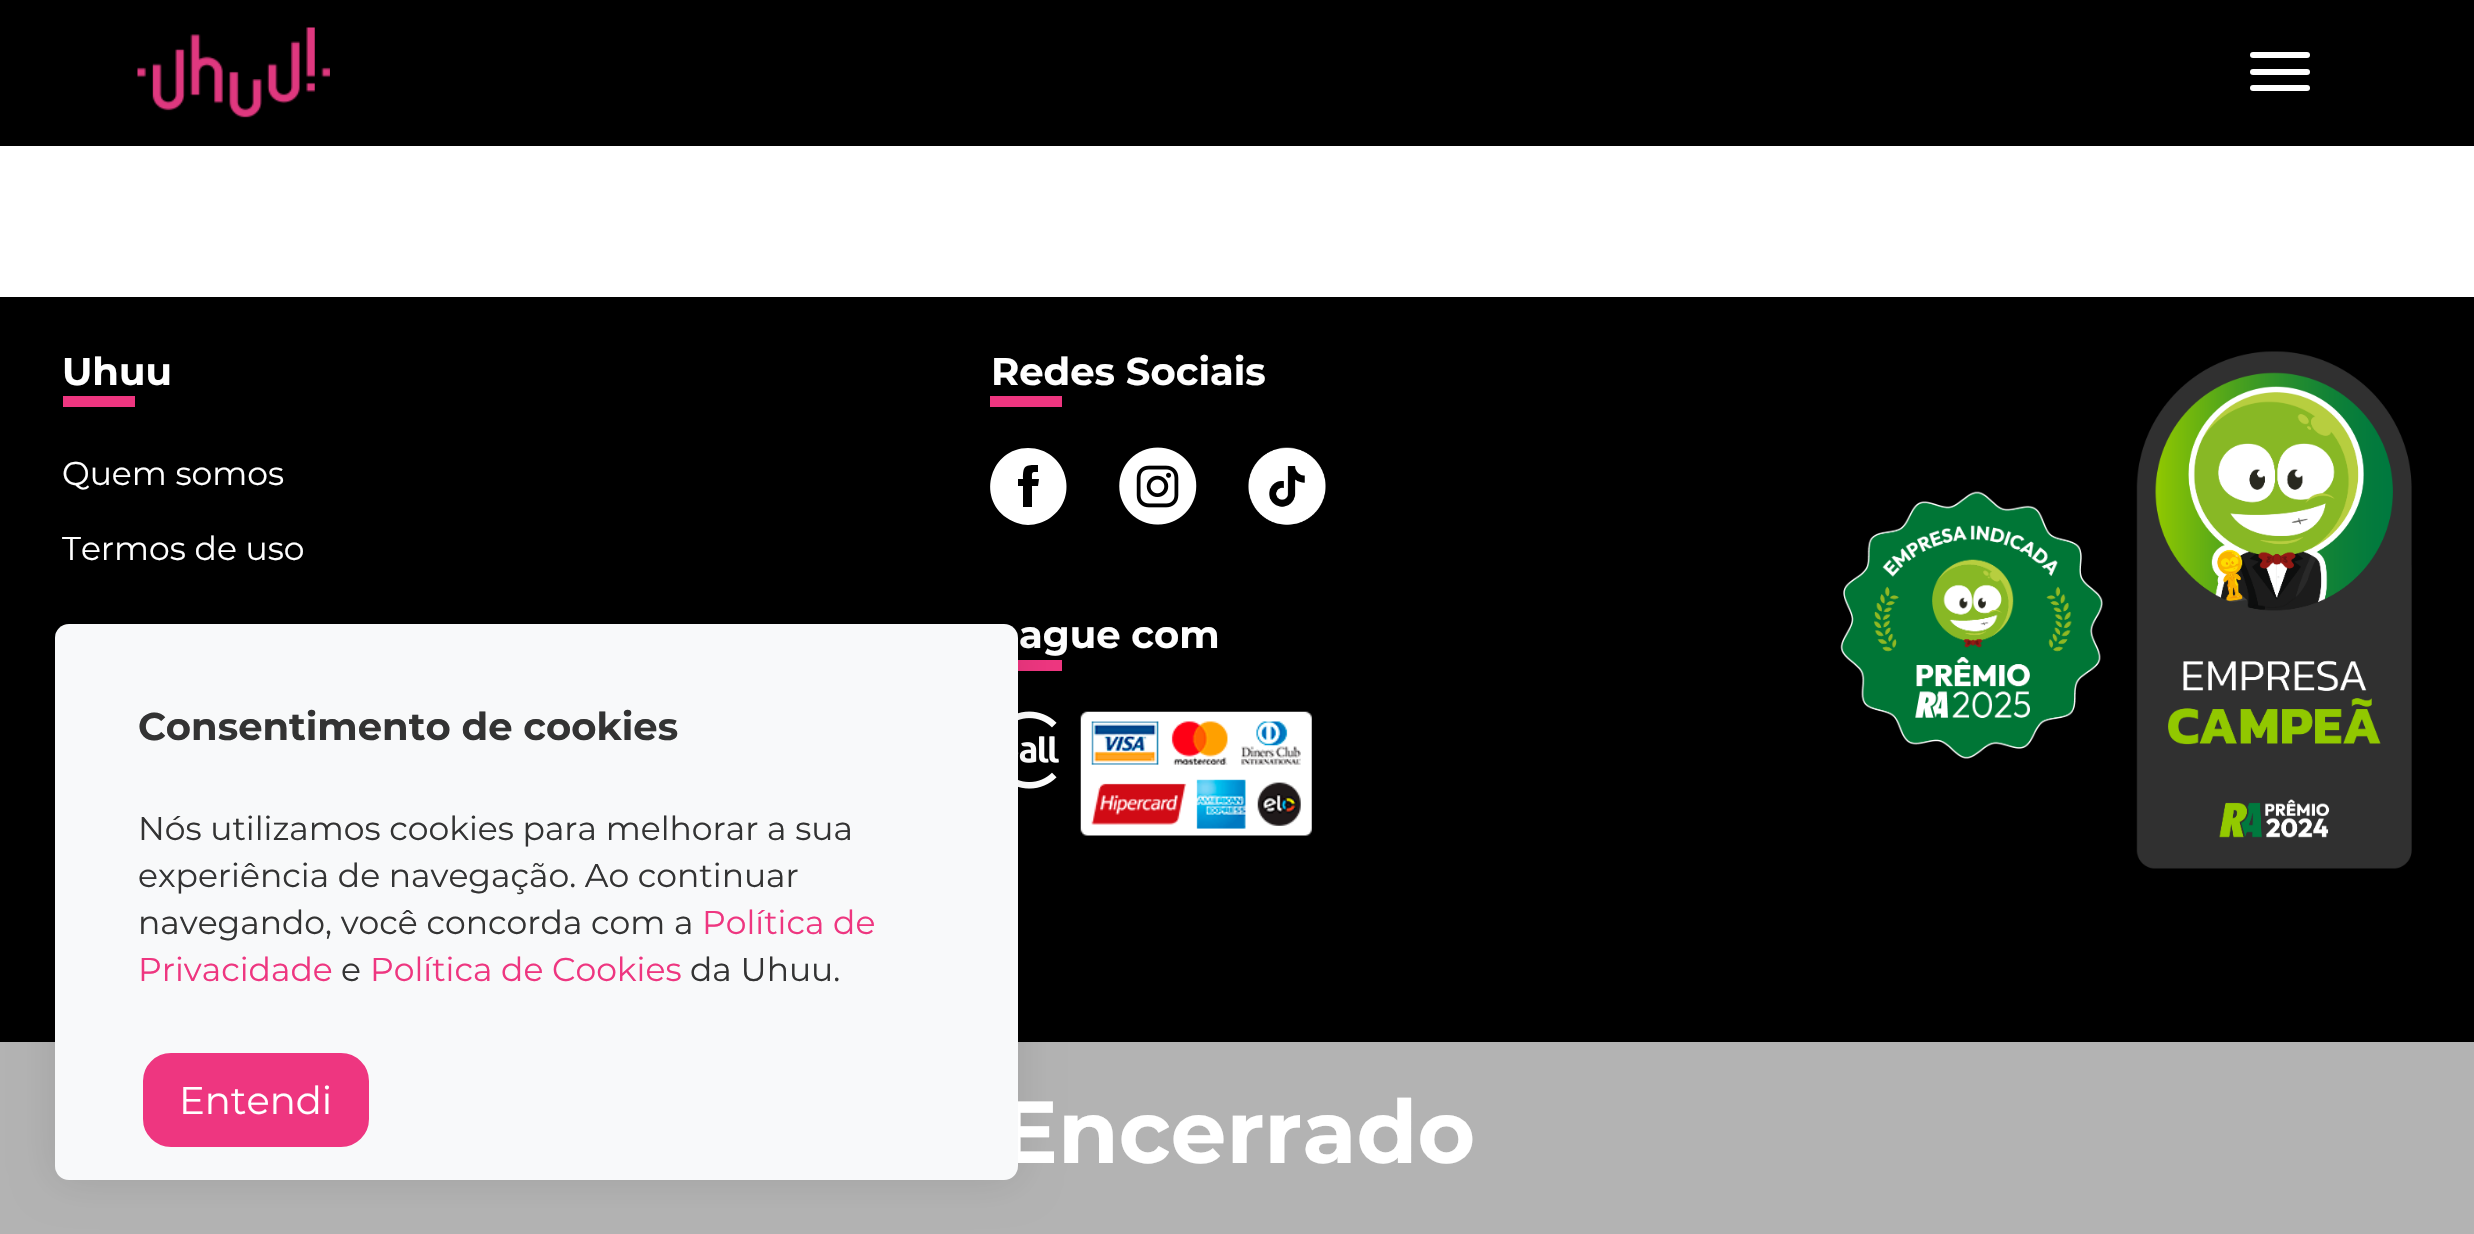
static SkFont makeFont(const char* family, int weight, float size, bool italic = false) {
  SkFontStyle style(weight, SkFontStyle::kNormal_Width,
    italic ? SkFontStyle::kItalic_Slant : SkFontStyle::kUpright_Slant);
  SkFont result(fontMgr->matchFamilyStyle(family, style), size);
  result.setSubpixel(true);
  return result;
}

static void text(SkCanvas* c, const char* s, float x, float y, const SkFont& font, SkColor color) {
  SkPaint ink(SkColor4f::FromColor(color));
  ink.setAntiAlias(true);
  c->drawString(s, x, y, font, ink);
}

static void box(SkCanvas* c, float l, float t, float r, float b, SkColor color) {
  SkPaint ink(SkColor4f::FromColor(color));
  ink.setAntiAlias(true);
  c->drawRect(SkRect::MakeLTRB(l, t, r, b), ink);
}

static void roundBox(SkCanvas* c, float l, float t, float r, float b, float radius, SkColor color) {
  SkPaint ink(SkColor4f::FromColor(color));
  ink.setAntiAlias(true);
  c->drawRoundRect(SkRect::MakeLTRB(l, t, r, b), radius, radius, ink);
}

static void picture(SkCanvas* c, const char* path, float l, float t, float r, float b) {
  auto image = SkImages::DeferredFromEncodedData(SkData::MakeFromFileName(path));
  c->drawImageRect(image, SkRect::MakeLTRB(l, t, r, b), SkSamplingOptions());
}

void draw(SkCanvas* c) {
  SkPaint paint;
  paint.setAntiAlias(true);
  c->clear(0xffffffff);
  box(c, 0, 0, 2474, 146, 0xff000000);
  picture(c, "img_01.png", 137, 27, 330, 118);
  roundBox(c, 2250, 52, 2310, 58, 3, 0xffffffff);
  roundBox(c, 2250, 69, 2310, 75, 3, 0xffffffff);
  roundBox(c, 2250, 85, 2310, 91, 3, 0xffffffff);
  box(c, 0, 297, 2474, 1042, 0xff000000);
  SkFont face1 = makeFont("Montserrat", 700, 38.5f);
  text(c, "Uhuu", 62, 385, face1, 0xffffffff);
  box(c, 63, 396, 135, 407, 0xffee3680);
  SkFont face2 = makeFont("Montserrat", 400, 33);
  text(c, "Quem somos", 62, 485, face2, 0xffffffff);
  text(c, "Termos de uso", 62, 560, face2, 0xffffffff);
  text(c, "Redes Sociais", 991, 385, face1, 0xffffffff);
  box(c, 990, 396, 1062, 407, 0xffee3680);
  paint.setColor(0xffffffff);
  c->drawPath(SkPathBuilder().moveTo(1038, 486).lineTo(1032, 486).lineTo(1032, 507).lineTo(1023, 507).lineTo(1023, 486).lineTo(1018, 486).lineTo(1018, 479).lineTo(1023, 479).cubicTo(1023, 465, 1025, 465, 1038, 465).lineTo(1038, 472).cubicTo(1031, 472, 1032, 472, 1032, 479).lineTo(1039, 479).close().moveTo(1028, 448).cubicTo(991, 448, 976, 497, 1007, 518).cubicTo(1013, 522, 1021, 525, 1028, 525).cubicTo(1036, 525, 1044, 522, 1050, 518).cubicTo(1081, 497, 1066, 448, 1028, 448).close().detach(), paint);
  picture(c, "img_02.png", 1119, 447, 1197, 525);
  picture(c, "img_03.png", 1248, 447, 1326, 525);
  text(c, "ague com", 1019, 648, face1, 0xffffffff);
  box(c, 1018, 660, 1062, 671, 0xffee3680);
  picture(c, "img_04.png", 1018, 711, 1059, 789);
  picture(c, "img_05.png", 1080, 711, 1312, 836);
  picture(c, "img_06.png", 1840, 491, 2103, 759);
  picture(c, "img_07.png", 2136, 351, 2412, 869);
  box(c, 0, 1042, 2474, 1234, 0xffb3b3b3);
  paint.setColor(0x1a000000);
  paint.setMaskFilter(SkMaskFilter::MakeBlur(kNormal_SkBlurStyle, 20.5f));
  c->drawRoundRect(SkRect::MakeLTRB(55, 624, 1018, 1180), 14, 14, paint);
  paint.setMaskFilter(nullptr);
  SkFont face3 = makeFont("Montserrat", 700, 88);
  text(c, "Encerrado", 999, 1163, face3, 0xffffffff);
  roundBox(c, 55, 624, 1018, 1180, 14, 0xfff8f9fa);
  text(c, "Consentimento de cookies", 138, 740, face1, 0xff333333);
  text(c, "Nós utilizamos cookies para melhorar a sua", 138, 840, face2, 0xff333333);
  text(c, "experiência de navegação. Ao continuar", 138, 887, face2, 0xff333333);
  text(c, "navegando, você concorda com a", 138, 934, face2, 0xff333333);
  text(c, "Política de", 702, 934, face2, 0xffee3680);
  text(c, "Privacidade", 138, 981, face2, 0xffee3680);
  text(c, "e", 341, 981, face2, 0xff333333);
  text(c, "Política de Cookies", 370, 981, face2, 0xffee3680);
  text(c, "da Uhuu.", 690, 981, face2, 0xff333333);
  paint.setColor(0xffee3680);
  c->drawRoundRect(SkRect::MakeLTRB(144.5f, 1054.5f, 367.5f, 1145.5f), 26.5f, 26.5f, paint);
  paint.setStyle(SkPaint::kStroke_Style);
  paint.setStrokeWidth(3);
  c->drawRoundRect(SkRect::MakeLTRB(144.5f, 1054.5f, 367.5f, 1145.5f), 26.5f, 26.5f, paint);
  SkFont face4 = makeFont("Montserrat", 400, 38.5f);
  text(c, "Entendi", 179, 1114, face4, 0xffffffff);
}
